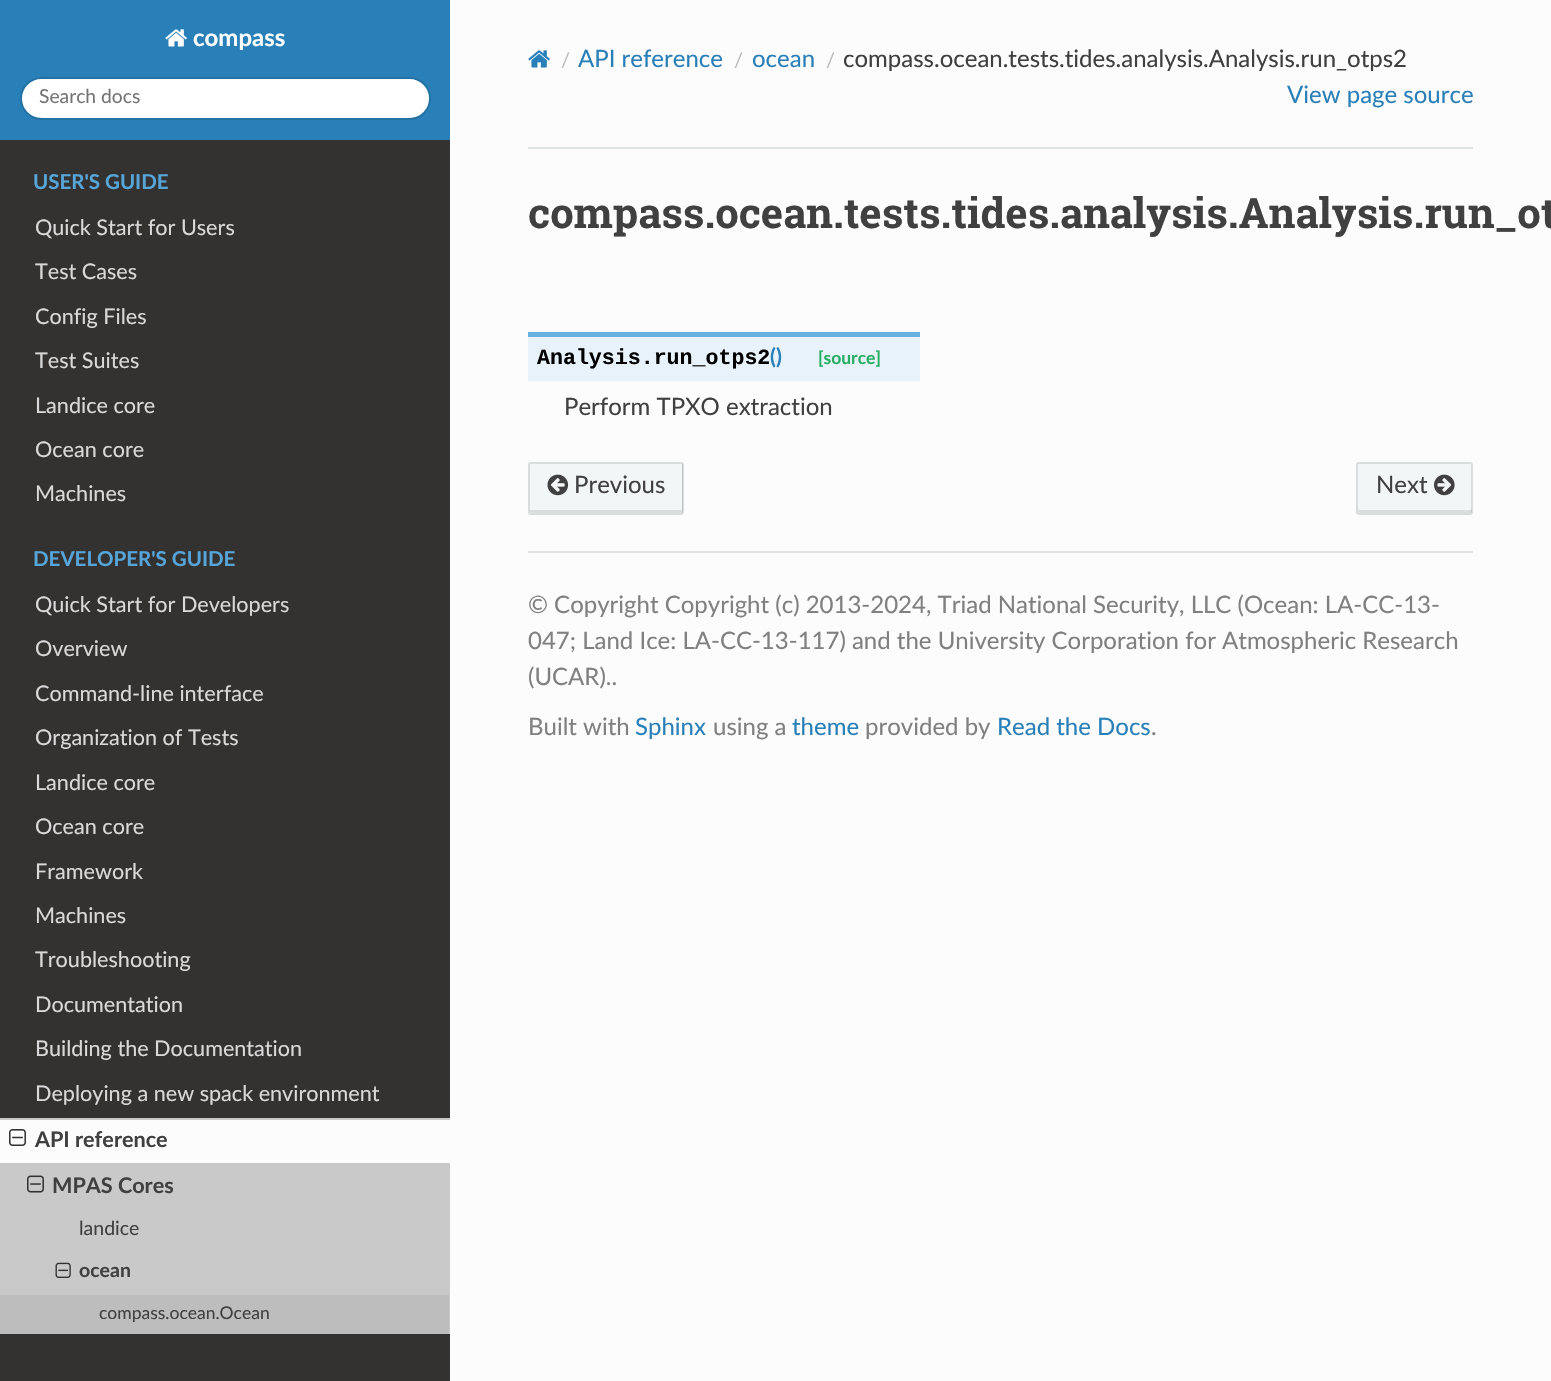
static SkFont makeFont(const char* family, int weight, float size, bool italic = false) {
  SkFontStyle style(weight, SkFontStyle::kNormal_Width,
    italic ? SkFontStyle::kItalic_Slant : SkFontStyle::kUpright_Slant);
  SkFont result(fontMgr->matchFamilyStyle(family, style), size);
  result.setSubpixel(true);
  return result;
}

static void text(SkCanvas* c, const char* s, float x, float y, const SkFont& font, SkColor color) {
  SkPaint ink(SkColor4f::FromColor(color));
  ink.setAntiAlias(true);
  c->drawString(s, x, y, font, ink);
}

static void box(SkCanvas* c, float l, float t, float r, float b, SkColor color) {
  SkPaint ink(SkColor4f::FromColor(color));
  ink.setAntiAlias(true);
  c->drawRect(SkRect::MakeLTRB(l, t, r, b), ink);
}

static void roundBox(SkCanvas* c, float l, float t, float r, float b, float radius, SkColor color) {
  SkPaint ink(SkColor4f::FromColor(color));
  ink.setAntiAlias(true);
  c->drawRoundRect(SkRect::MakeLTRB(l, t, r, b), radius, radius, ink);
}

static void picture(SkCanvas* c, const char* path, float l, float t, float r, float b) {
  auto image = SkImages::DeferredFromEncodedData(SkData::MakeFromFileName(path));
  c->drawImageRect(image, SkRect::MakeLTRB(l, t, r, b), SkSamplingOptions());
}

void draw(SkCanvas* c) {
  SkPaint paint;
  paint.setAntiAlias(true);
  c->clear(0xfffcfcfc);
  box(c, 0, 140, 450, 1381, 0xff343131);
  box(c, 0, 0, 450, 140, 0xff2980b9);
  picture(c, "img_01.png", 165, 29, 187, 47);
  SkFont face1 = makeFont("Lato", 700, 24);
  text(c, "compass", 193, 46, face1, 0xfffcfcfc);
  paint.setColor(0xffffffff);
  c->drawRoundRect(SkRect::MakeLTRB(21, 78, 430, 119), 20.5f, 20.5f, paint);
  paint.setStyle(SkPaint::kStroke_Style);
  paint.setStrokeWidth(2);
  paint.setColor(0xff2472a4);
  c->drawRoundRect(SkRect::MakeLTRB(21, 78, 430, 119), 20.5f, 20.5f, paint);
  SkFont face2 = makeFont("Lato", 400, 19.25f);
  text(c, "Search docs", 39, 103, face2, 0xff757575);
  SkFont face3 = makeFont("Lato", 700, 20.5f);
  text(c, "USER'S GUIDE", 33, 189, face3, 0xff55a5d9);
  SkFont face4 = makeFont("Lato", 400, 21.6f);
  text(c, "Quick Start for Users", 35, 235, face4, 0xffd9d9d9);
  text(c, "Test Cases", 35, 279, face4, 0xffd9d9d9);
  text(c, "Config Files", 35, 324, face4, 0xffd9d9d9);
  text(c, "Test Suites", 35, 368, face4, 0xffd9d9d9);
  text(c, "Landice core", 35, 413, face4, 0xffd9d9d9);
  text(c, "Ocean core", 35, 457, face4, 0xffd9d9d9);
  text(c, "Machines", 35, 501, face4, 0xffd9d9d9);
  text(c, "DEVELOPER'S GUIDE", 33, 566, face3, 0xff55a5d9);
  text(c, "Quick Start for Developers", 35, 612, face4, 0xffd9d9d9);
  text(c, "Overview", 35, 656, face4, 0xffd9d9d9);
  text(c, "Command-line interface", 35, 701, face4, 0xffd9d9d9);
  text(c, "Organization of Tests", 35, 745, face4, 0xffd9d9d9);
  text(c, "Landice core", 35, 790, face4, 0xffd9d9d9);
  text(c, "Ocean core", 35, 834, face4, 0xffd9d9d9);
  text(c, "Framework", 35, 879, face4, 0xffd9d9d9);
  text(c, "Machines", 35, 923, face4, 0xffd9d9d9);
  text(c, "Troubleshooting", 35, 967, face4, 0xffd9d9d9);
  text(c, "Documentation", 35, 1012, face4, 0xffd9d9d9);
  text(c, "Building the Documentation", 35, 1056, face4, 0xffd9d9d9);
  text(c, "Deploying a new spack environment", 35, 1101, face4, 0xffd9d9d9);
  box(c, 0, 1120, 450, 1163, 0xfffcfcfc);
  box(c, 0, 1118, 450, 1120, 0xffc9c9c9);
  box(c, 0, 1163, 450, 1295, 0xffc9c9c9);
  picture(c, "img_02.png", 9, 1129, 26, 1146);
  SkFont face5 = makeFont("Lato", 700, 21.6f);
  text(c, "API reference", 35, 1147, face5, 0xff404040);
  picture(c, "img_03.png", 27, 1175, 44, 1193);
  text(c, "MPAS Cores", 52, 1193, face5, 0xff404040);
  SkFont face6 = makeFont("Lato", 400, 19.5f);
  text(c, "landice", 79, 1235, face6, 0xff404040);
  picture(c, "img_04.png", 55, 1262, 71, 1278);
  SkFont face7 = makeFont("Lato", 700, 19.5f);
  text(c, "ocean", 79, 1277, face7, 0xff404040);
  box(c, 0, 1295, 449, 1334, 0xffbdbdbd);
  box(c, 449, 1295, 450, 1334, 0xffc9c9c9);
  SkFont face8 = makeFont("Lato", 400, 17.5f);
  text(c, "compass.ocean.Ocean", 99, 1319, face8, 0xff404040);
  picture(c, "img_05.png", 528, 50, 550, 68);
  SkFont face9 = makeFont("Lato", 400, 20);
  text(c, "/", 561, 67, face9, 0xffbbbbbb);
  SkFont face10 = makeFont("Lato", 400, 24);
  text(c, "API reference", 578, 67, face10, 0xff2980b9);
  text(c, "/", 734, 67, face9, 0xffbbbbbb);
  text(c, "ocean", 752, 67, face10, 0xff2980b9);
  text(c, "/", 826, 67, face9, 0xffbbbbbb);
  text(c, "compass.ocean.tests.tides.analysis.Analysis.run_otps2", 843, 67, face10, 0xff404040);
  text(c, "View page source", 1287, 103, face10, 0xff2980b9);
  box(c, 528, 147, 1473, 149, 0xffe1e4e5);
  SkFont face11 = makeFont("Roboto Slab", 700, 42);
  text(c, "compass.ocean.tests.tides.analysis.Analysis.run_ot", 528, 228, face11, 0xff404040);
  box(c, 528, 337, 920, 381, 0xffe7f2fa);
  box(c, 528, 332, 920, 337, 0xff6ab0de);
  SkFont face12 = makeFont("Liberation Mono", 700, 21.6f);
  text(c, "Analysis.run_otps2", 537, 364, face12, 0xff000000);
  text(c, "()", 770, 364, face5, 0xff2980b9);
  SkFont face13 = makeFont("Lato", 700, 17.5f);
  text(c, "[source]", 818, 364, face13, 0xff27ae60);
  text(c, "Perform TPXO extraction", 564, 415, face10, 0xff404040);
  roundBox(c, 528, 462, 684, 515, 3, 0xfff3f6f6);
  paint.setStyle(SkPaint::kFill_Style);
  paint.setColor(0xffdbdddd);
  c->drawPath(SkPathBuilder().moveTo(530, 508).lineTo(530, 512).cubicTo(530, 512, 531, 513, 532, 513).lineTo(682, 513).cubicTo(682, 513, 683, 512, 683, 512).lineTo(683, 466).cubicTo(683, 465, 683, 464, 682, 464).lineTo(682, 508).cubicTo(682, 509, 682, 510, 681, 510).lineTo(531, 510).cubicTo(530, 510, 530, 509, 530, 508).close().detach(), paint);
  paint.setStyle(SkPaint::kStroke_Style);
  paint.setColor(0x1a000000);
  c->drawRoundRect(SkRect::MakeLTRB(529, 463, 683, 514), 2, 2, paint);
  picture(c, "img_06.png", 547, 474, 569, 496);
  text(c, "Previous", 574, 493, face10, 0xff404040);
  roundBox(c, 1356, 462, 1473, 515, 3, 0xfff3f6f6);
  paint.setStyle(SkPaint::kFill_Style);
  paint.setColor(0xffdbdddd);
  c->drawPath(SkPathBuilder().moveTo(1358, 508).lineTo(1358, 512).cubicTo(1358, 512, 1359, 513, 1360, 513).lineTo(1470, 513).cubicTo(1471, 513, 1472, 512, 1472, 512).lineTo(1472, 508).cubicTo(1472, 509, 1471, 510, 1470, 510).lineTo(1359, 510).close().detach(), paint);
  paint.setStyle(SkPaint::kStroke_Style);
  paint.setColor(0x1a000000);
  c->drawRoundRect(SkRect::MakeLTRB(1357, 463, 1472, 514), 2, 2, paint);
  text(c, "Next", 1376, 493, face10, 0xff404040);
  picture(c, "img_07.png", 1434, 474, 1455, 496);
  box(c, 528, 551, 1473, 553, 0xffe1e4e5);
  text(c, "© Copyright Copyright (c) 2013-2024, Triad National Security, LLC (Ocean: LA-CC-13-", 528, 613, face10, 0xff808080);
  text(c, "047; Land Ice: LA-CC-13-117) and the University Corporation for Atmospheric Research", 528, 649, face10, 0xff808080);
  text(c, "(UCAR)..", 528, 685, face10, 0xff808080);
  text(c, "Built with", 528, 735, face10, 0xff808080);
  text(c, "Sphinx", 635, 735, face10, 0xff2980b9);
  text(c, "using a", 713, 735, face10, 0xff808080);
  text(c, "theme", 792, 735, face10, 0xff2980b9);
  text(c, "provided by", 865, 735, face10, 0xff808080);
  text(c, "Read the Docs", 997, 735, face10, 0xff2980b9);
  text(c, ".", 1151, 735, face10, 0xff808080);
}
